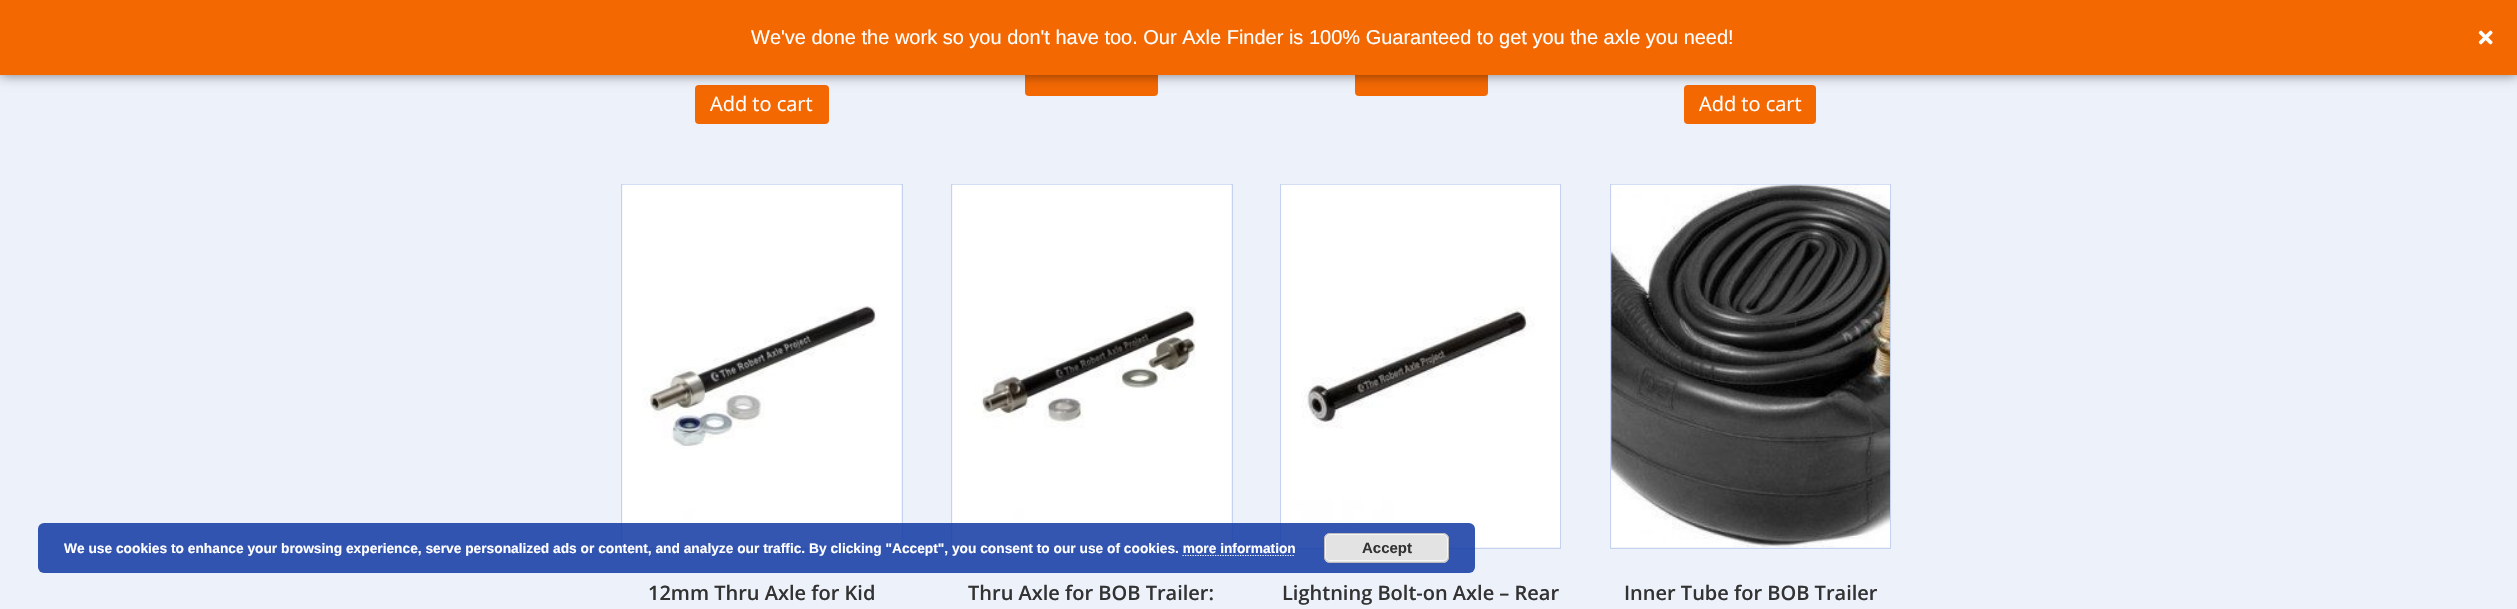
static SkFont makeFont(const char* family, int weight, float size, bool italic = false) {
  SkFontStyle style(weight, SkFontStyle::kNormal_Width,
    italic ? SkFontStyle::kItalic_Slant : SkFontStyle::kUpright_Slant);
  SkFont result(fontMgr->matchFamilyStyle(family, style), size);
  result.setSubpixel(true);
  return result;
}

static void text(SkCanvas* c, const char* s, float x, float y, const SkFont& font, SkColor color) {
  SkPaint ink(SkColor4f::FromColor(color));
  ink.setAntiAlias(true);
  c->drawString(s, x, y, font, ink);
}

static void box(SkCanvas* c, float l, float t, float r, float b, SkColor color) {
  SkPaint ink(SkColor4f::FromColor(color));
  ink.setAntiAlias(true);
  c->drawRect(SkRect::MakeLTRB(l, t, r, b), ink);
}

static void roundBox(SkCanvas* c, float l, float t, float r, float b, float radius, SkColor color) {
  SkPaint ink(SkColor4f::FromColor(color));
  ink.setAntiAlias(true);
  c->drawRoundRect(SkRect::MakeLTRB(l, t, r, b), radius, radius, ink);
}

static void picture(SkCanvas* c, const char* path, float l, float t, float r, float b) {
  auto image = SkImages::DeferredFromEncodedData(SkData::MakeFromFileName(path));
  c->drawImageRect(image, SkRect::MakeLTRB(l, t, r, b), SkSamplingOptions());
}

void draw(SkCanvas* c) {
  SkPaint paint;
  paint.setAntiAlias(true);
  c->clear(0xffedf1fa);
  roundBox(c, 1025, 58, 1158, 96, 4, 0xfff46802);
  roundBox(c, 1355, 58, 1488, 96, 4, 0xfff46802);
  roundBox(c, 695, 85, 829, 124, 4, 0xfff46802);
  roundBox(c, 1684, 85, 1816, 124, 4, 0xfff46802);
  paint.setColor(0x80000000);
  paint.setMaskFilter(SkMaskFilter::MakeBlur(kNormal_SkBlurStyle, 6));
  c->drawRect(SkRect::MakeLTRB(0, 0, 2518, 75), paint);
  paint.setMaskFilter(nullptr);
  box(c, 0, 0, 2517, 75, 0xfff46802);
  SkFont face1 = makeFont("Liberation Sans", 400, 20);
  text(c, "We've done the work so you don't have too. Our Axle Finder is 100% Guaranteed to get you the axle you need!", 751, 44, face1, 0xffffffff);
  picture(c, "img_01.png", 2478, 30, 2493, 45);
  SkFont face2 = makeFont("Open Sans", 400, 20);
  text(c, "Add to cart", 710, 111, face2, 0xffffffff);
  text(c, "Add to cart", 1699, 111, face2, 0xffffffff);
  paint.setStyle(SkPaint::kStroke_Style);
  paint.setStrokeWidth(1);
  paint.setColor(0xffc5d2ef);
  c->drawRect(SkRect::MakeLTRB(621.5f, 184.5f, 902.5f, 548.5f), paint);
  picture(c, "img_02.png", 622, 184, 902, 548);
  SkFont face3 = makeFont("Open Sans", 600, 20);
  text(c, "12mm Thru Axle for Kid", 648, 600, face3, 0xff333333);
  c->drawRect(SkRect::MakeLTRB(951.5f, 184.5f, 1232.5f, 548.5f), paint);
  picture(c, "img_03.png", 952, 184, 1232, 548);
  text(c, "Thru Axle for BOB Trailer:", 968, 600, face3, 0xff333333);
  c->drawRect(SkRect::MakeLTRB(1280.5f, 184.5f, 1560.5f, 548.5f), paint);
  picture(c, "img_04.png", 1281, 184, 1560, 548);
  text(c, "Lightning Bolt-on Axle – Rear", 1282, 600, face3, 0xff333333);
  c->drawRect(SkRect::MakeLTRB(1610.5f, 184.5f, 1890.5f, 548.5f), paint);
  picture(c, "img_05.png", 1611, 184, 1890, 548);
  text(c, "Inner Tube for BOB Trailer", 1624, 600, face3, 0xff333333);
  roundBox(c, 38, 523, 1475, 573, 6, 0xd91138a3);
  SkFont face4 = makeFont("Liberation Sans", 700, 13.75f);
  text(c, "We use cookies to enhance your browsing experience, serve personalized ads or content, and analyze our traffic. By clicking \"Accept\", you consent to our use of cookies. more information", 64, 553, face4, 0xffffffff);
  roundBox(c, 1324, 533, 1449, 563, 6, 0xffe3e3e3);
  paint.setColor(0xfff6f6f6);
  c->drawRoundRect(SkRect::MakeLTRB(1325.5f, 534.5f, 1447.5f, 560.5f), 4.5f, 4.5f, paint);
  paint.setColor(0xffbbbbbb);
  c->drawRoundRect(SkRect::MakeLTRB(1324.5f, 533.5f, 1448.5f, 562.5f), 5.5f, 5.5f, paint);
  SkFont face5 = makeFont("Liberation Sans", 700, 15);
  text(c, "Accept", 1362, 553, face5, 0xff333333);
  paint.setStrokeWidth(1.2f);
  paint.setColor(0xffffffff);
  paint.setPathEffect(SkDashPathEffect::Make({{1.25f, 1.25f}}, 0));
  c->drawPath(SkPathBuilder().moveTo(1182.5f, 555.5f).lineTo(1295, 555.5f).detach(), paint);
  paint.setPathEffect(nullptr);
}
